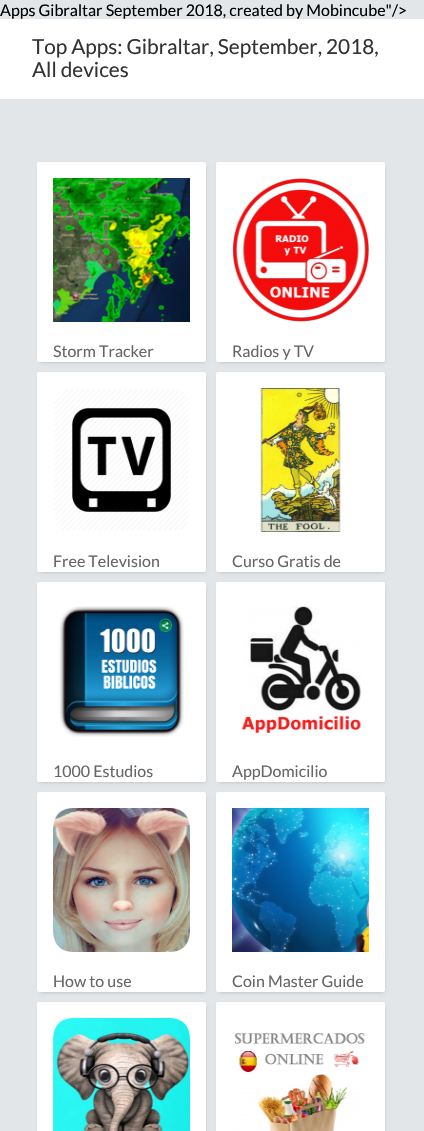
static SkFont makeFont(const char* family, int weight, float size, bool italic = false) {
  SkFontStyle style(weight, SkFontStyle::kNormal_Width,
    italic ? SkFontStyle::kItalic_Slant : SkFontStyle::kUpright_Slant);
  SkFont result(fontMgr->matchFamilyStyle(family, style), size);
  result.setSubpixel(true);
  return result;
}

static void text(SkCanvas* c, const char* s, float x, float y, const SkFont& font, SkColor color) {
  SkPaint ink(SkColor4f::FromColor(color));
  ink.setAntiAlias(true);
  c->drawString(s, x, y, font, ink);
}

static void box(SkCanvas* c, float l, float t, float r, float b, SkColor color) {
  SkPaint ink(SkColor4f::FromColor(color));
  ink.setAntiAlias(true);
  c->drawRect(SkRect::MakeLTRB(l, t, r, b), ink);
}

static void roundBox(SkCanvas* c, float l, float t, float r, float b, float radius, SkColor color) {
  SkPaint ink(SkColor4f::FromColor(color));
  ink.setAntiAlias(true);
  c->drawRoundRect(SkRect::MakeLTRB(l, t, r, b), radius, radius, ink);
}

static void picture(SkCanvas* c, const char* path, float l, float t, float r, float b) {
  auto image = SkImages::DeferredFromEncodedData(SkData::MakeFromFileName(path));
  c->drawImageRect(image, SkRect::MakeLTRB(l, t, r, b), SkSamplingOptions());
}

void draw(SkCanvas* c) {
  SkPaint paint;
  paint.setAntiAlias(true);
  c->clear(0xffe3e6e9);
  SkFont face1 = makeFont("Lato", 400, 16);
  text(c, "Apps Gibraltar September 2018, created by Mobincube\"/>", 0, 16, face1, 0xff000000);
  box(c, 0, 19, 424, 99, 0xffffffff);
  SkFont face2 = makeFont("Lato", 400, 20.75f);
  text(c, "Top Apps: Gibraltar, September, 2018,", 32, 54, face2, 0xff333333);
  text(c, "All devices", 32, 77, face2, 0xff333333);
  paint.setColor(0x33000000);
  paint.setMaskFilter(SkMaskFilter::MakeBlur(kNormal_SkBlurStyle, 2));
  c->drawRect(SkRect::MakeLTRB(40, 166, 205, 362), paint);
  paint.setMaskFilter(nullptr);
  roundBox(c, 37, 162, 206, 362, 2, 0xffffffff);
  picture(c, "img_01.png", 53, 178, 190, 322);
  text(c, "Storm Tracker", 53, 357, face1, 0xff666666);
  paint.setMaskFilter(SkMaskFilter::MakeBlur(kNormal_SkBlurStyle, 2));
  c->drawRect(SkRect::MakeLTRB(219, 166, 384, 362), paint);
  paint.setMaskFilter(nullptr);
  roundBox(c, 216, 162, 385, 362, 2, 0xffffffff);
  picture(c, "img_02.png", 232, 178, 369, 322);
  text(c, "Radios y TV", 232, 357, face1, 0xff666666);
  paint.setMaskFilter(SkMaskFilter::MakeBlur(kNormal_SkBlurStyle, 2));
  c->drawRect(SkRect::MakeLTRB(40, 376, 205, 572), paint);
  paint.setMaskFilter(nullptr);
  roundBox(c, 37, 372, 206, 572, 2, 0xffffffff);
  picture(c, "img_03.png", 54, 389, 189, 531);
  text(c, "Free Television", 53, 567, face1, 0xff666666);
  paint.setMaskFilter(SkMaskFilter::MakeBlur(kNormal_SkBlurStyle, 2));
  c->drawRect(SkRect::MakeLTRB(219, 376, 384, 572), paint);
  paint.setMaskFilter(nullptr);
  roundBox(c, 216, 372, 385, 572, 2, 0xffffffff);
  picture(c, "img_04.png", 260, 388, 341, 532);
  text(c, "Curso Gratis de", 232, 567, face1, 0xff666666);
  paint.setMaskFilter(SkMaskFilter::MakeBlur(kNormal_SkBlurStyle, 2));
  c->drawRect(SkRect::MakeLTRB(40, 586, 205, 782), paint);
  paint.setMaskFilter(nullptr);
  roundBox(c, 37, 582, 206, 782, 2, 0xffffffff);
  picture(c, "img_05.png", 59, 606, 184, 737);
  text(c, "1000 Estudios", 53, 777, face1, 0xff666666);
  paint.setMaskFilter(SkMaskFilter::MakeBlur(kNormal_SkBlurStyle, 2));
  c->drawRect(SkRect::MakeLTRB(219, 586, 384, 782), paint);
  paint.setMaskFilter(nullptr);
  roundBox(c, 216, 582, 385, 782, 2, 0xffffffff);
  picture(c, "img_06.png", 241, 606, 362, 733);
  text(c, "AppDomicilio", 232, 777, face1, 0xff666666);
  paint.setMaskFilter(SkMaskFilter::MakeBlur(kNormal_SkBlurStyle, 2));
  c->drawRect(SkRect::MakeLTRB(40, 796, 205, 992), paint);
  paint.setMaskFilter(nullptr);
  roundBox(c, 37, 792, 206, 992, 2, 0xffffffff);
  picture(c, "img_07.png", 53, 808, 190, 952);
  text(c, "How to use", 53, 987, face1, 0xff666666);
  paint.setMaskFilter(SkMaskFilter::MakeBlur(kNormal_SkBlurStyle, 2));
  c->drawRect(SkRect::MakeLTRB(219, 796, 384, 992), paint);
  paint.setMaskFilter(nullptr);
  roundBox(c, 216, 792, 385, 992, 2, 0xffffffff);
  picture(c, "img_08.png", 232, 808, 369, 952);
  text(c, "Coin Master Guide", 232, 987, face1, 0xff666666);
  paint.setMaskFilter(SkMaskFilter::MakeBlur(kNormal_SkBlurStyle, 2));
  c->drawRect(SkRect::MakeLTRB(40, 1006, 205, 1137), paint);
  paint.setMaskFilter(nullptr);
  roundBox(c, 37, 1002, 206, 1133, 2, 0xffffffff);
  picture(c, "img_09.png", 53, 1018, 190, 1131);
  paint.setMaskFilter(SkMaskFilter::MakeBlur(kNormal_SkBlurStyle, 2));
  c->drawRect(SkRect::MakeLTRB(219, 1006, 384, 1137), paint);
  paint.setMaskFilter(nullptr);
  roundBox(c, 216, 1002, 385, 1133, 2, 0xffffffff);
  picture(c, "img_10.png", 234, 1033, 365, 1131);
}
